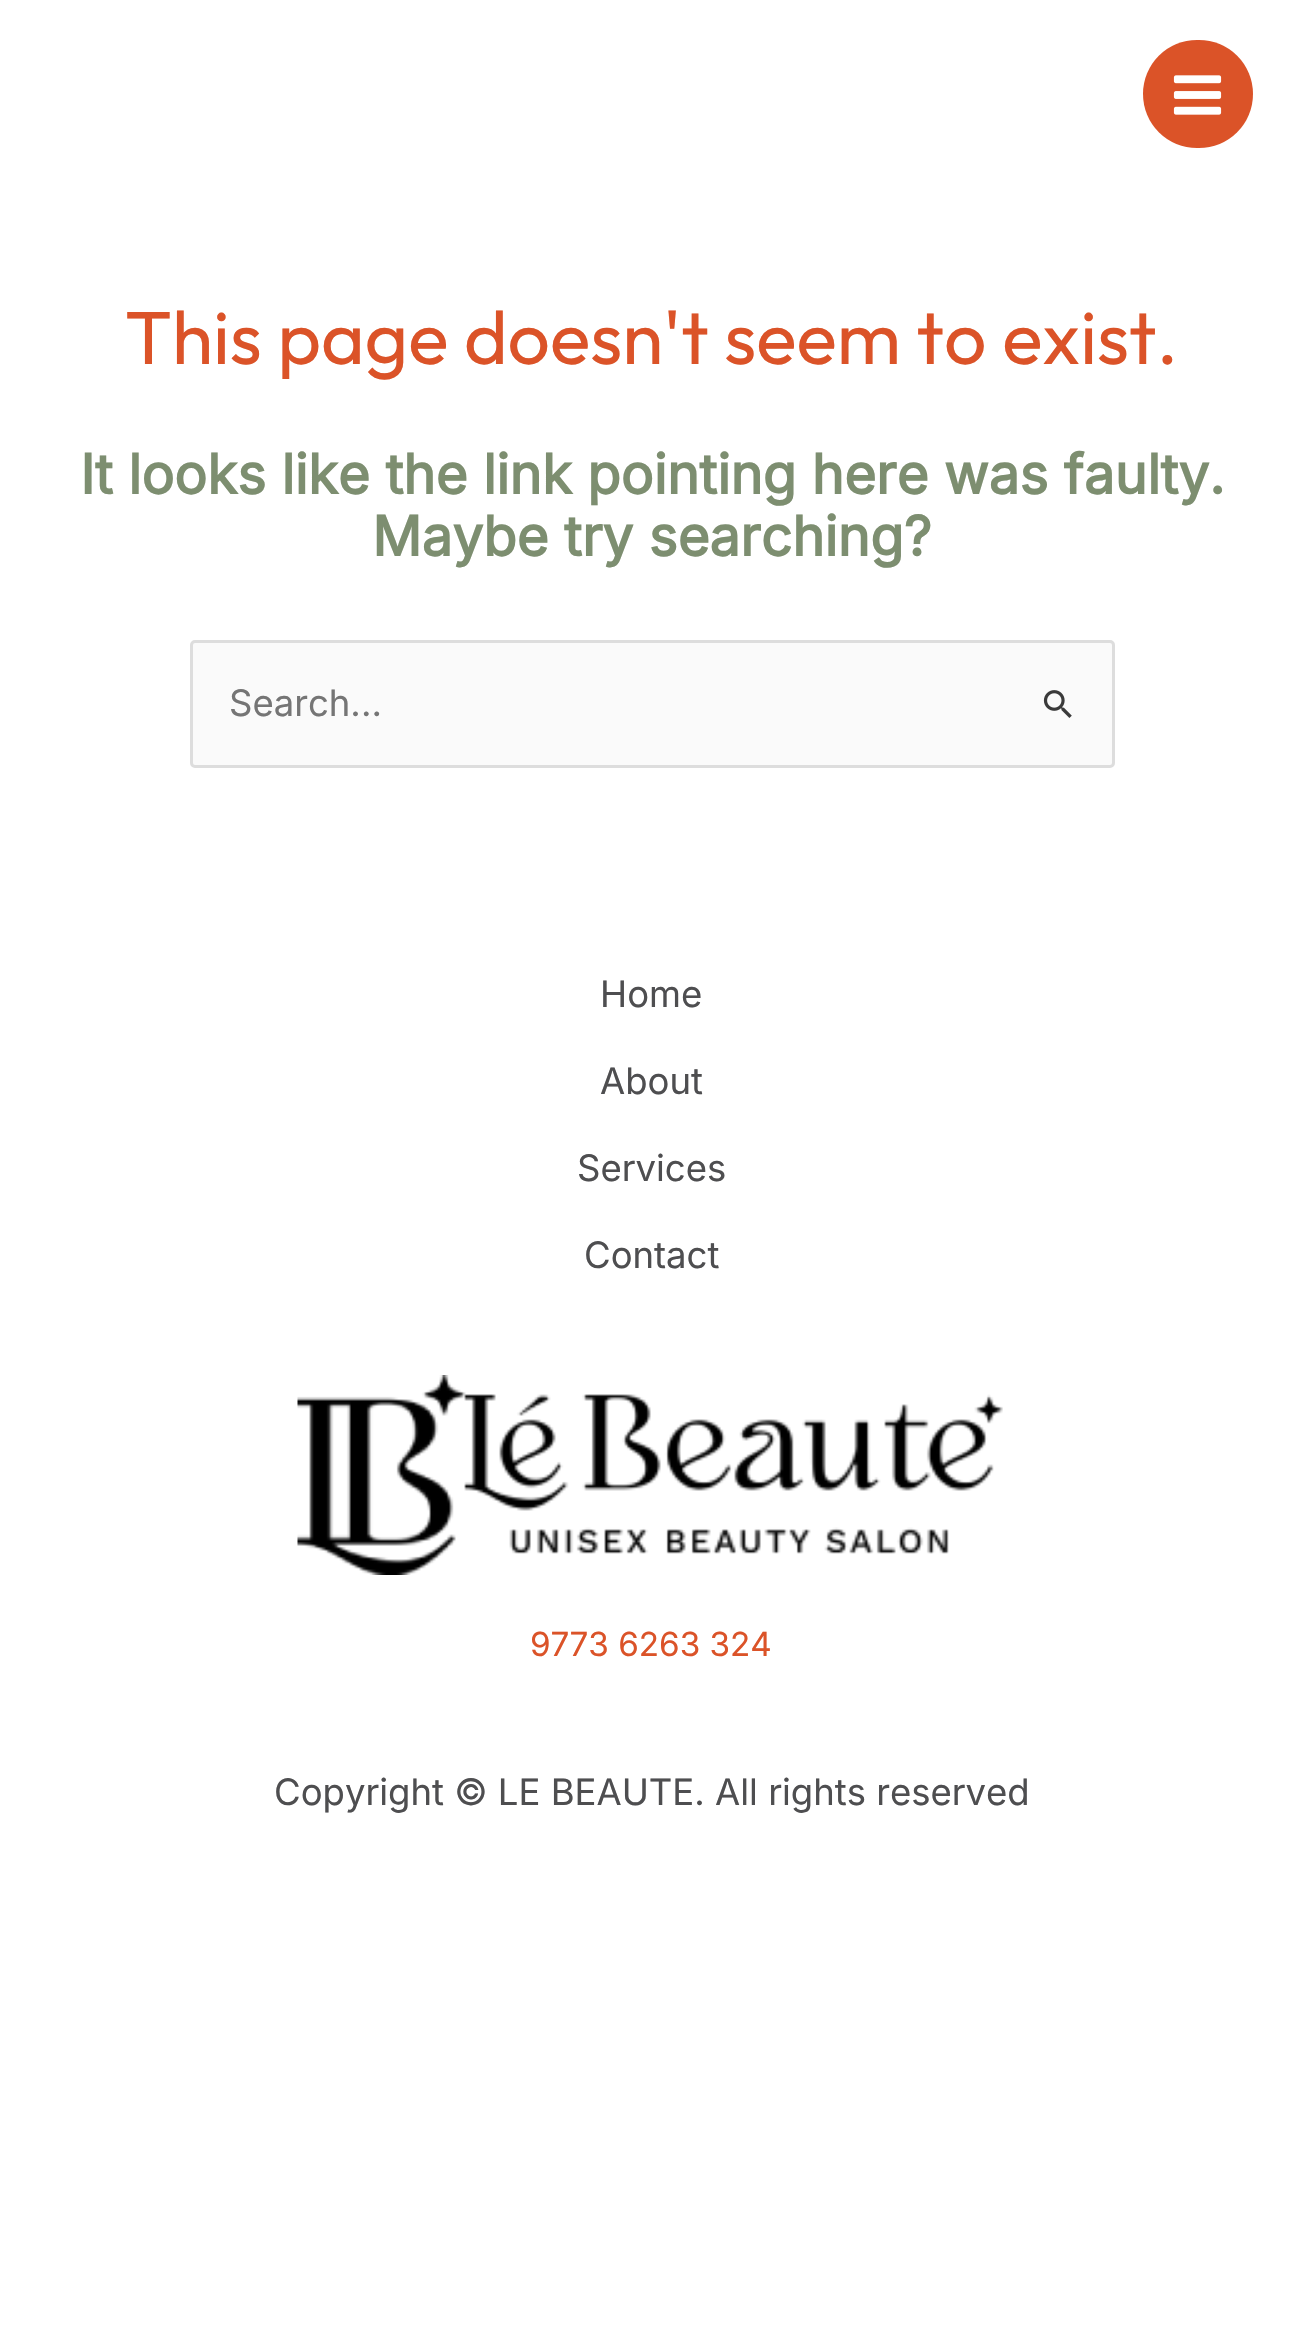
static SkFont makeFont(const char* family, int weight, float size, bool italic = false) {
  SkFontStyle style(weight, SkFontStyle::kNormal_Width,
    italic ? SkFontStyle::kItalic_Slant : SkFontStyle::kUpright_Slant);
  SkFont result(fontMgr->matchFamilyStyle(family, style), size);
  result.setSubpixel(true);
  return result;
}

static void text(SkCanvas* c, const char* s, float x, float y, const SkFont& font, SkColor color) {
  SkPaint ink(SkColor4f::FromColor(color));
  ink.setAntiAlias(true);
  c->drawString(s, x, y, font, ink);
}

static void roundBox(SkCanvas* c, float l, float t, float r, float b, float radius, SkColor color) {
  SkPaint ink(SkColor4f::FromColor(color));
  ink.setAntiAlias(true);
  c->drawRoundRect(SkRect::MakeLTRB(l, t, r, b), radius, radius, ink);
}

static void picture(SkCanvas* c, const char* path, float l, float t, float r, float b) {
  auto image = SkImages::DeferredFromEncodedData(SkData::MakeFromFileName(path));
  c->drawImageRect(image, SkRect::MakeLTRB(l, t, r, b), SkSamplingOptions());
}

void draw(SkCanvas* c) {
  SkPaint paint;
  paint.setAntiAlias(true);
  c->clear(0xffffffff);
  roundBox(c, 1143, 40, 1253, 148, 54, 0xffdb5328);
  picture(c, "img_01.png", 1173, 75, 1222, 115);
  SkFont face1 = makeFont("Outfit", 400, 75);
  text(c, "This page doesn't seem to exist.", 125, 364, face1, 0xffdb5328);
  SkFont face2 = makeFont("Inter", 700, 54.75f);
  text(c, "It looks like the link pointing here was faulty.", 80, 494, face2, 0xff7d8e70);
  text(c, "Maybe try searching?", 372, 556, face2, 0xff7d8e70);
  paint.setColor(0xfffafafa);
  c->drawRoundRect(SkRect::MakeLTRB(191.5f, 641.5f, 1113.5f, 766.5f), 3.5f, 3.5f, paint);
  paint.setStyle(SkPaint::kStroke_Style);
  paint.setStrokeWidth(3);
  paint.setColor(0xffdddddd);
  c->drawRoundRect(SkRect::MakeLTRB(191.5f, 641.5f, 1113.5f, 766.5f), 3.5f, 3.5f, paint);
  SkFont face3 = makeFont("Inter", 400, 36.5f);
  text(c, "Search...", 229, 716, face3, 0xff757575);
  picture(c, "img_02.png", 1043, 690, 1072, 718);
  text(c, "Home", 600, 1007, face3, 0xff4e4e50);
  text(c, "About", 600, 1094, face3, 0xff4e4e50);
  text(c, "Services", 577, 1181, face3, 0xff4e4e50);
  text(c, "Contact", 584, 1268, face3, 0xff4e4e50);
  picture(c, "img_03.png", 297, 1375, 1003, 1575);
  SkFont face4 = makeFont("Inter", 400, 33.25f);
  text(c, "9773 6263 324", 530, 1656, face4, 0xffdb5328);
  text(c, "Copyright © LE BEAUTE. All rights reserved", 274, 1805, face3, 0xff4e4e50);
}
